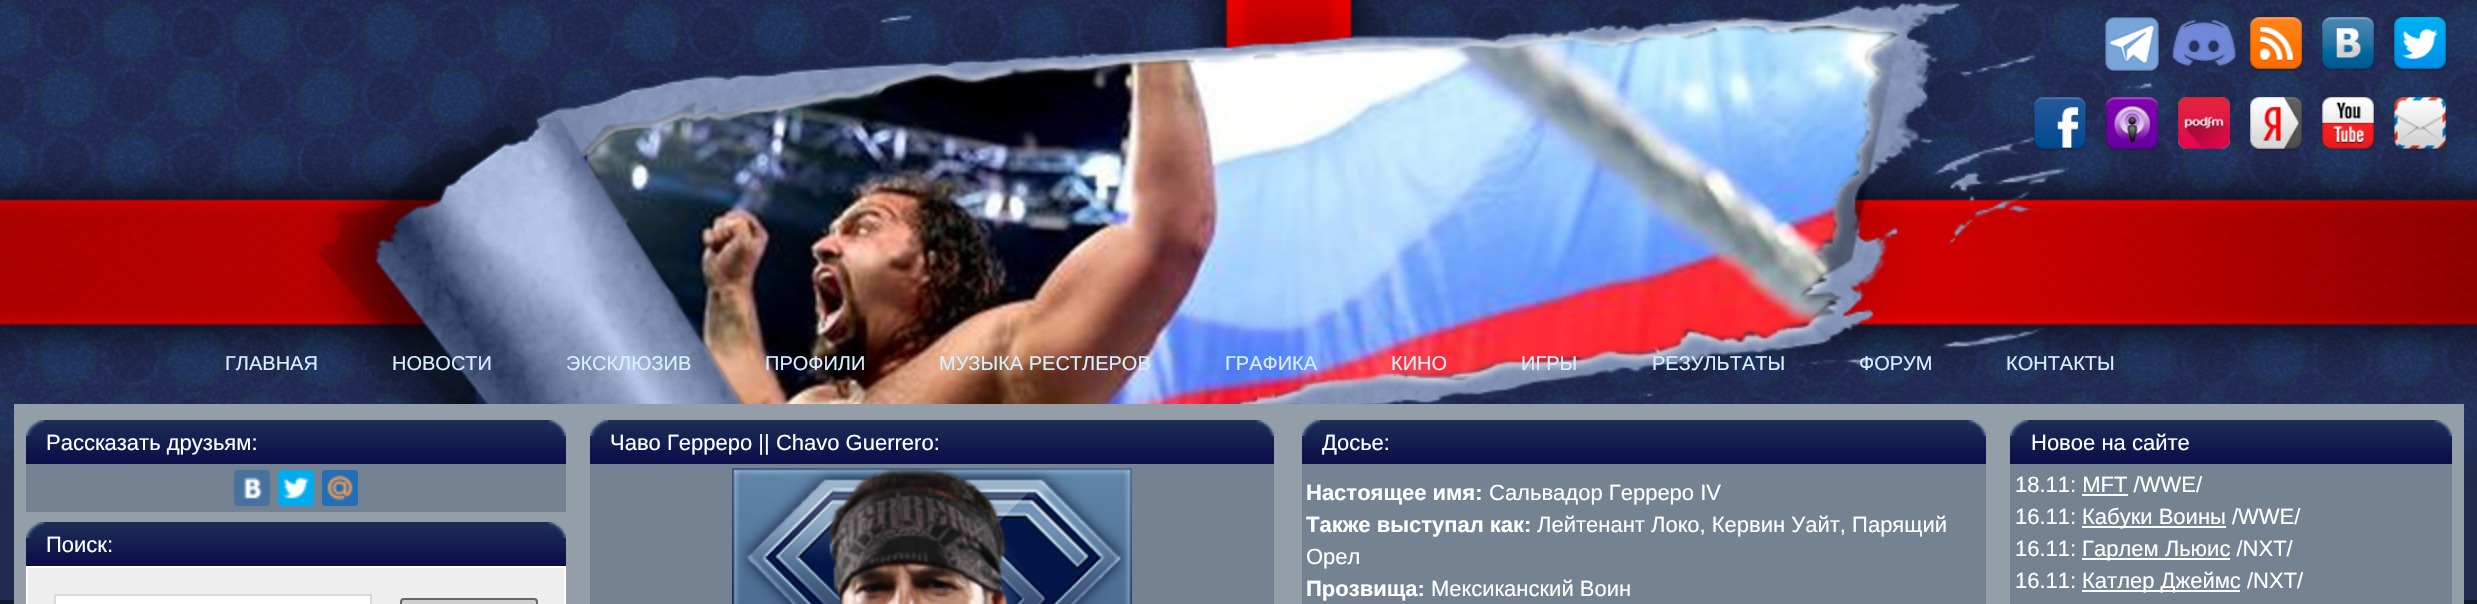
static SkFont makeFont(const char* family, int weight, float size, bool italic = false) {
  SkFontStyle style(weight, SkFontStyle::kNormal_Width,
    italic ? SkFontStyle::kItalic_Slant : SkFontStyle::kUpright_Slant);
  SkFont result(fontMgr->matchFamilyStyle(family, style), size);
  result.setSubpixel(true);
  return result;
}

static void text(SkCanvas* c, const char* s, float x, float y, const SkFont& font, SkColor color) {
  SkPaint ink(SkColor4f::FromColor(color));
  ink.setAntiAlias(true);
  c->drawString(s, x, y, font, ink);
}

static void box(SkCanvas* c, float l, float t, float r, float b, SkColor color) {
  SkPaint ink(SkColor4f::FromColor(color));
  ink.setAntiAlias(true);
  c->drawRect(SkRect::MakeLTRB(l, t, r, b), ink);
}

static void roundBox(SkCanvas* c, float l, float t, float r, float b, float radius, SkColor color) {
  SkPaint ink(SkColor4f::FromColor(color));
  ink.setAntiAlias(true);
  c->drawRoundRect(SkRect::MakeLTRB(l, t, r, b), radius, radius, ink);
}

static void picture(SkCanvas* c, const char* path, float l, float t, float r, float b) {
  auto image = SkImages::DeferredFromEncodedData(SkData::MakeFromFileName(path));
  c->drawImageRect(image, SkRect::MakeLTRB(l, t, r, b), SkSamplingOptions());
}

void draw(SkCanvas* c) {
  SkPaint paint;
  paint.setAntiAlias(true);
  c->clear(0xff11192c);
  picture(c, "img_01.png", 0, 0, 2477, 600);
  picture(c, "img_02.png", 2105, 17, 2159, 71);
  picture(c, "img_03.png", 2172, 20, 2236, 66);
  picture(c, "img_04.png", 2249, 17, 2303, 71);
  picture(c, "img_05.png", 2321, 17, 2375, 71);
  picture(c, "img_06.png", 2393, 17, 2447, 71);
  picture(c, "img_07.png", 2032, 97, 2087, 151);
  picture(c, "img_08.png", 2105, 97, 2159, 151);
  picture(c, "img_09.png", 2178, 97, 2230, 149);
  picture(c, "img_10.png", 2249, 97, 2303, 151);
  picture(c, "img_11.png", 2321, 97, 2375, 151);
  picture(c, "img_12.png", 2393, 97, 2447, 151);
  SkFont face1 = makeFont("Liberation Sans", 400, 20);
  text(c, "ГЛАВНАЯ", 225, 370, face1, 0xffd5f1ff);
  text(c, "НОВОСТИ", 392, 370, face1, 0xffd5f1ff);
  text(c, "ЭКСКЛЮЗИВ", 566, 370, face1, 0xffd5f1ff);
  text(c, "ПРОФИЛИ", 765, 370, face1, 0xffd5f1ff);
  text(c, "МУЗЫКА РЕСТЛЕРОВ", 939, 370, face1, 0xffd5f1ff);
  text(c, "ГРАФИКА", 1225, 370, face1, 0xffd5f1ff);
  text(c, "КИНО", 1391, 370, face1, 0xffd5f1ff);
  text(c, "ИГРЫ", 1521, 370, face1, 0xffd5f1ff);
  text(c, "РЕЗУЛЬТАТЫ", 1652, 370, face1, 0xffd5f1ff);
  text(c, "ФОРУМ", 1859, 370, face1, 0xffd5f1ff);
  text(c, "КОНТАКТЫ", 2006, 370, face1, 0xffd5f1ff);
  box(c, 14, 404, 2464, 604, 0xff949ea8);
  picture(c, "img_13.png", 26, 420, 566, 464);
  picture(c, "img_14.png", 26, 420, 44, 436);
  picture(c, "img_15.png", 548, 420, 566, 436);
  SkFont face2 = makeFont("Liberation Sans", 400, 22);
  text(c, "Рассказать друзьям:", 46, 450, face2, 0xffffffff);
  box(c, 26, 464, 566, 512, 0xff748292);
  roundBox(c, 234, 470, 270, 506, 4, 0xff48729e);
  picture(c, "img_16.png", 243, 477, 263, 499);
  roundBox(c, 278, 470, 314, 506, 4, 0xff00aced);
  picture(c, "img_17.png", 283, 477, 309, 499);
  roundBox(c, 322, 470, 358, 506, 4, 0xff226eb7);
  picture(c, "img_18.png", 327, 475, 353, 501);
  picture(c, "img_13.png", 26, 522, 566, 566);
  picture(c, "img_14.png", 26, 522, 44, 538);
  picture(c, "img_15.png", 548, 522, 566, 538);
  text(c, "Поиск:", 46, 552, face2, 0xffffffff);
  paint.setColor(0xffeeeeee);
  c->drawRect(SkRect::MakeLTRB(27, 567, 565, 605), paint);
  paint.setStyle(SkPaint::kStroke_Style);
  paint.setStrokeWidth(2);
  paint.setColor(0xffffffff);
  c->drawRect(SkRect::MakeLTRB(27, 567, 565, 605), paint);
  paint.setStyle(SkPaint::kFill_Style);
  c->drawRect(SkRect::MakeLTRB(55, 595, 371, 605), paint);
  paint.setStyle(SkPaint::kStroke_Style);
  paint.setColor(0xffd9d9d9);
  c->drawRect(SkRect::MakeLTRB(55, 595, 371, 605), paint);
  paint.setStyle(SkPaint::kFill_Style);
  paint.setColor(0xffcecece);
  c->drawRoundRect(SkRect::MakeLTRB(401, 599, 537, 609), 3, 3, paint);
  paint.setStyle(SkPaint::kStroke_Style);
  paint.setColor(0xff666666);
  c->drawRoundRect(SkRect::MakeLTRB(401, 599, 537, 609), 3, 3, paint);
  picture(c, "img_19.png", 590, 420, 1274, 464);
  picture(c, "img_14.png", 590, 420, 608, 436);
  picture(c, "img_15.png", 1256, 420, 1274, 436);
  text(c, "Чаво Герреро || Chavo Guerrero:", 610, 450, face2, 0xffffffff);
  box(c, 590, 464, 1274, 604, 0xff748292);
  picture(c, "img_20.png", 732, 468, 1132, 604);
  picture(c, "img_19.png", 1302, 420, 1986, 464);
  picture(c, "img_14.png", 1302, 420, 1320, 436);
  picture(c, "img_15.png", 1968, 420, 1986, 436);
  text(c, "Досье:", 1322, 450, face2, 0xffffffff);
  box(c, 1302, 464, 1986, 604, 0xff748292);
  SkFont face3 = makeFont("Liberation Sans", 700, 22);
  text(c, "Настоящее имя:", 1306, 500, face3, 0xffffffff);
  text(c, "Сальвадор Герреро IV", 1489, 500, face2, 0xffffffff);
  text(c, "Также выступал как:", 1306, 532, face3, 0xffffffff);
  text(c, "Лейтенант Локо, Кервин Уайт, Парящий", 1537, 532, face2, 0xffffffff);
  text(c, "Орел", 1306, 564, face2, 0xffffffff);
  text(c, "Прозвища:", 1306, 596, face3, 0xffffffff);
  text(c, "Мексиканский Воин", 1431, 596, face2, 0xffffffff);
  picture(c, "img_21.png", 2010, 420, 2452, 464);
  picture(c, "img_14.png", 2010, 420, 2028, 436);
  picture(c, "img_15.png", 2434, 420, 2452, 436);
  text(c, "Новое на сайте", 2031, 450, face2, 0xffffffff);
  box(c, 2010, 464, 2452, 604, 0xff748292);
  text(c, "18.11: MFT /WWE/", 2015, 492, face2, 0xffffffff);
  box(c, 2082, 494, 2128, 496, 0xffffffff);
  text(c, "16.11:", 2015, 524, face2, 0xffffffff);
  box(c, 2082, 526, 2226, 528, 0xffffffff);
  text(c, "Кабуки Воины /WWE/", 2082, 524, face2, 0xffffffff);
  text(c, "16.11:", 2015, 556, face2, 0xffffffff);
  box(c, 2082, 558, 2230, 560, 0xffffffff);
  text(c, "Гарлем Льюис /NXT/", 2082, 556, face2, 0xffffffff);
  text(c, "16.11:", 2015, 588, face2, 0xffffffff);
  box(c, 2082, 590, 2240, 592, 0xffffffff);
  text(c, "Катлер Джеймс /NXT/", 2082, 588, face2, 0xffffffff);
}
